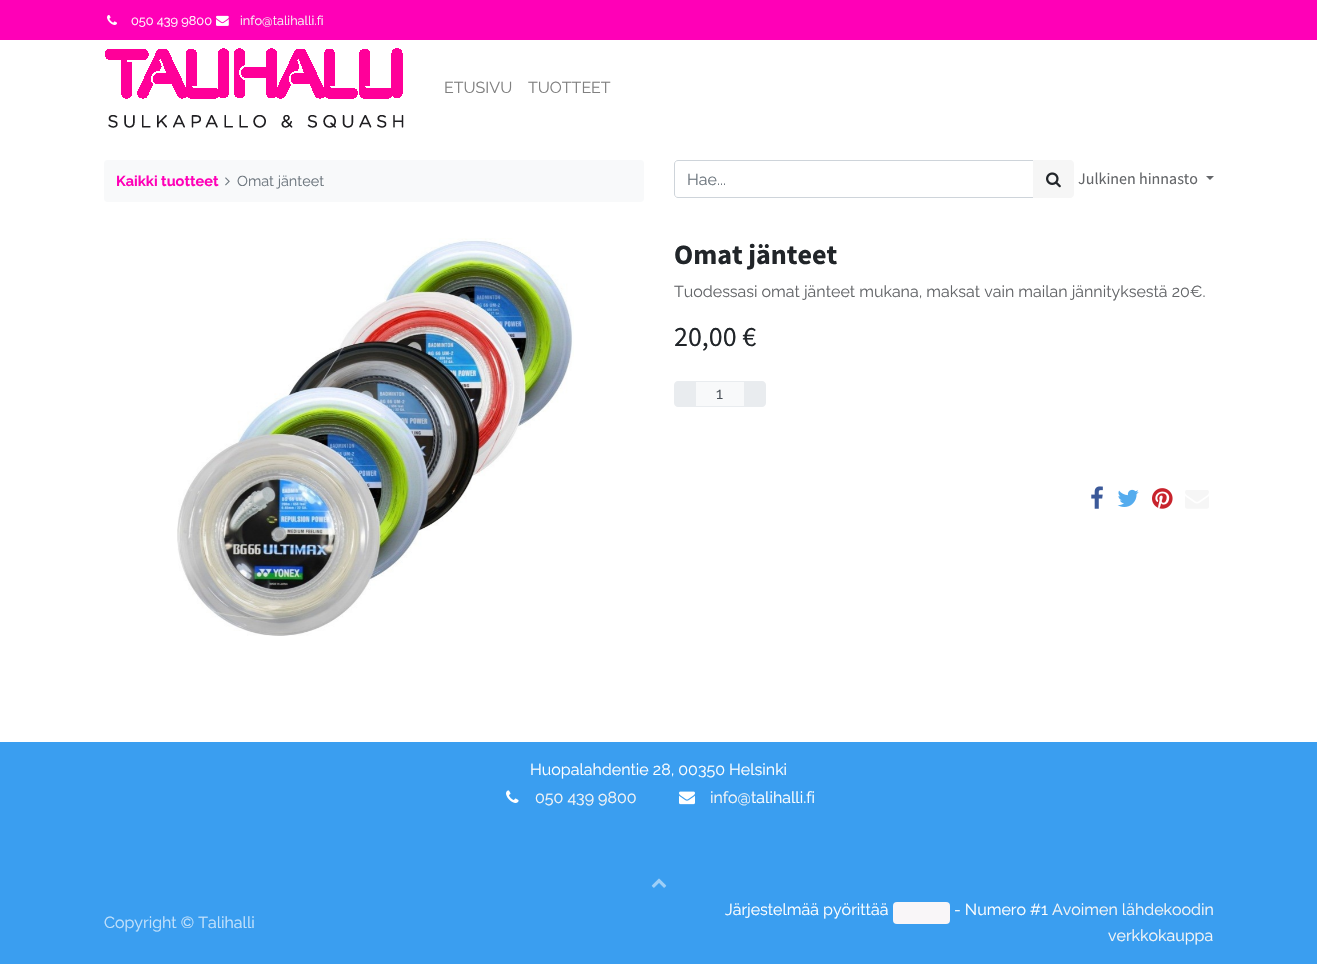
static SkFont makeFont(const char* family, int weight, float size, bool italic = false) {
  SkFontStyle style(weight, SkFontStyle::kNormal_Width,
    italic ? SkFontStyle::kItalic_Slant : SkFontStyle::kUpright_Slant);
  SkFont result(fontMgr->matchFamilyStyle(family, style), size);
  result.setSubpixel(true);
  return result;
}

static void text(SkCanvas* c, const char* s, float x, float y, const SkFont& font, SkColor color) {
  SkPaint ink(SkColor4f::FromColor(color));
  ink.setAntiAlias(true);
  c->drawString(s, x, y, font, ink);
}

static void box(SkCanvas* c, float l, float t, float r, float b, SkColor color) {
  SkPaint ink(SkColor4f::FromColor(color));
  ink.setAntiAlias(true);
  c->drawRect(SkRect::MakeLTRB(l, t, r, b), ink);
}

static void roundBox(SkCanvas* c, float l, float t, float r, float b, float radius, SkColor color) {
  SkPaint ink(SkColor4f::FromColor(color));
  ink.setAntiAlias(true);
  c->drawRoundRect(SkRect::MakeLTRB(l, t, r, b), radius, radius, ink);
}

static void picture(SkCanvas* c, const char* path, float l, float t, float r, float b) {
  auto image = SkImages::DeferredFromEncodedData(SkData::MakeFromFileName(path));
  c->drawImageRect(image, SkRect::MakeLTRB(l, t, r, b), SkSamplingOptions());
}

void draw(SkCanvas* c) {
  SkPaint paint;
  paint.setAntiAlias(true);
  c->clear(0xffffffff);
  box(c, 0, 0, 1317, 40, 0xffff00b7);
  picture(c, "img_01.png", 107, 15, 117, 25);
  SkFont face1 = makeFont("Raleway", 400, 12.75f);
  text(c, "050 439 9800", 131, 25, face1, 0xffffffff);
  picture(c, "img_02.png", 216, 15, 229, 26);
  text(c, "info@talihalli.fi", 240, 25, face1, 0xfff6f6f6);
  picture(c, "img_03.png", 105, 48, 404, 128);
  SkFont face2 = makeFont("Raleway", 400, 16);
  text(c, "ETUSIVU", 444, 93, face2, 0xff808080);
  text(c, "TUOTTEET", 528, 93, face2, 0xff808080);
  roundBox(c, 104, 160, 644, 202, 4, 0xfff8f9fa);
  SkFont face3 = makeFont("Raleway", 700, 14.5f);
  text(c, "Kaikki tuotteet", 116, 186, face3, 0xffff00b7);
  picture(c, "img_04.png", 225, 177, 230, 186);
  SkFont face4 = makeFont("Raleway", 400, 14.5f);
  text(c, "Omat jänteet", 237, 186, face4, 0xff6c757d);
  paint.setStyle(SkPaint::kStroke_Style);
  paint.setStrokeWidth(1);
  paint.setColor(0xffced4da);
  c->drawPath(SkPathBuilder().moveTo(678, 160.5f).lineTo(1033.5f, 160.5f).lineTo(1033.5f, 197.5f).lineTo(678, 197.5f).cubicTo(676, 197.5f, 674.5f, 196, 674.5f, 194).lineTo(674.5f, 164).cubicTo(674.5f, 162, 676, 160.5f, 678, 160.5f).close().detach(), paint);
  text(c, "Hae...", 687, 185, face2, 0xff6c757d);
  paint.setStyle(SkPaint::kFill_Style);
  paint.setColor(0xfff6f6f6);
  c->drawPath(SkPathBuilder().moveTo(1033, 160).lineTo(1070, 160).cubicTo(1072, 160, 1074, 162, 1074, 164).lineTo(1074, 194).cubicTo(1074, 196, 1072, 198, 1070, 198).lineTo(1033, 198).close().detach(), paint);
  picture(c, "img_05.png", 1046, 172, 1061, 188);
  SkFont face5 = makeFont("Source Sans Pro", 400, 16);
  text(c, "Julkinen hinnasto", 1078, 184, face5, 0xff646669);
  paint.setColor(0xff646669);
  c->drawPath(SkPathBuilder().moveTo(1206, 176).lineTo(1214, 176).lineTo(1210, 180).close().detach(), paint);
  picture(c, "img_06.png", 177, 238, 574, 636);
  SkFont face6 = makeFont("Source Sans Pro", 700, 28);
  text(c, "Omat jänteet", 674, 264, face6, 0xff212529);
  text(c, "Tuodessasi omat jänteet mukana, maksat vain mailan jännityksestä 20€.", 674, 297, face2, 0xff646669);
  SkFont face7 = makeFont("Source Sans Pro", 400, 28);
  text(c, "20,00 €", 674, 346, face7, 0xff212529);
  paint.setColor(0xfff8f9fa);
  c->drawRect(SkRect::MakeLTRB(695.5f, 381.5f, 744.5f, 406.5f), paint);
  paint.setStyle(SkPaint::kStroke_Style);
  paint.setColor(0xffe9ecef);
  c->drawRect(SkRect::MakeLTRB(695.5f, 381.5f, 744.5f, 406.5f), paint);
  paint.setStyle(SkPaint::kFill_Style);
  c->drawPath(SkPathBuilder().moveTo(678, 381).lineTo(696, 381).lineTo(696, 407).lineTo(678, 407).cubicTo(676, 407, 674, 405, 674, 403).lineTo(674, 385).cubicTo(674, 383, 676, 381, 678, 381).close().detach(), paint);
  text(c, "1", 716, 399, face2, 0xff495057);
  c->drawPath(SkPathBuilder().moveTo(744, 381).lineTo(762, 381).cubicTo(764, 381, 766, 383, 766, 385).lineTo(766, 403).cubicTo(766, 405, 764, 407, 762, 407).lineTo(744, 407).close().detach(), paint);
  picture(c, "img_07.png", 1091, 486, 1103, 509);
  picture(c, "img_08.png", 1117, 489, 1139, 507);
  picture(c, "img_09.png", 1152, 488, 1173, 509);
  picture(c, "img_10.png", 1185, 490, 1209, 509);
  box(c, 0, 742, 1317, 964, 0xff3a9ef0);
  text(c, "Huopalahdentie 28, 00350 Helsinki", 530, 775, face2, 0xffffffff);
  picture(c, "img_11.png", 506, 790, 519, 803);
  text(c, "050 439 9800", 535, 803, face2, 0xfff6f6f6);
  picture(c, "img_12.png", 679, 791, 695, 805);
  text(c, "info@", 710, 803, face2, 0xfff6f6f6);
  text(c, "talihalli.fi", 751, 803, face2, 0xffffffff);
  picture(c, "img_13.png", 651, 878, 667, 888);
  text(c, "Copyright © Talihalli", 104, 928, face2, 0xffc4e2fb);
  text(c, "Järjestelmää pyörittää", 725, 915, face2, 0xffffffff);
  roundBox(c, 893, 902, 950, 924, 4, 0xfff9f6f8);
  text(c, "- Numero #1", 954, 915, face2, 0xffffffff);
  text(c, "Avoimen lähdekoodin", 1052, 915, face2, 0xfff6f6f6);
  text(c, "verkkokauppa", 1108, 941, face2, 0xfff6f6f6);
}
